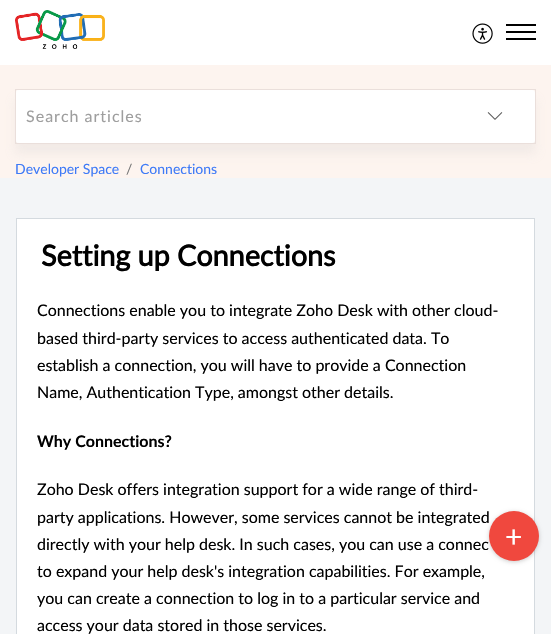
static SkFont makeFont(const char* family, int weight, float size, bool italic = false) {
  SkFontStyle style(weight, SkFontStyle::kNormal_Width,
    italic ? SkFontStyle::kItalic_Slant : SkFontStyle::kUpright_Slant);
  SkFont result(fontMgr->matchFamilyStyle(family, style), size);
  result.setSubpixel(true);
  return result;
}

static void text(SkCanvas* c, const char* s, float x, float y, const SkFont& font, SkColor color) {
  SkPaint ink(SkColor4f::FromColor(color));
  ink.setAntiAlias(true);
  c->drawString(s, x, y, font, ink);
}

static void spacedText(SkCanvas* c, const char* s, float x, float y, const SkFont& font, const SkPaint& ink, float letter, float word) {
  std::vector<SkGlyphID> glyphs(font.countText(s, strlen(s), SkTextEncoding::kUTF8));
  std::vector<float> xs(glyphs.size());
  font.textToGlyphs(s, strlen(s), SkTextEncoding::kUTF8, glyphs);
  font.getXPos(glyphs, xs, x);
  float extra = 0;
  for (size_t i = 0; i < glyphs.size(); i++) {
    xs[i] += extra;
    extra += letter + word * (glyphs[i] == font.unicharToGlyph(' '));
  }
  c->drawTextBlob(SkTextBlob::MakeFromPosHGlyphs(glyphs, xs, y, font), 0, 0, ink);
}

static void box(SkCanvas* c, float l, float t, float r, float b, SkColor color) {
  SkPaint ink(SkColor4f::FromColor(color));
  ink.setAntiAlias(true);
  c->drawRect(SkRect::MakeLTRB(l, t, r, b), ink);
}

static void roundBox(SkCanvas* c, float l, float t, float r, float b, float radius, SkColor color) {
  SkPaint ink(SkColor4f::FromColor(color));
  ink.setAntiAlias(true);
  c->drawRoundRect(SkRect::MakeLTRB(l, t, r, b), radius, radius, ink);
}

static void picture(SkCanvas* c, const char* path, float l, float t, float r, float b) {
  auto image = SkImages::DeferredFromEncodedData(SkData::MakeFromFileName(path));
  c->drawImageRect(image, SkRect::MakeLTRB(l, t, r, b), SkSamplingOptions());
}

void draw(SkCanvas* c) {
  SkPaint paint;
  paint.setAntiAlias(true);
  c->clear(0xfff3f5f7);
  box(c, 0, 0, 551, 65, 0xffffffff);
  picture(c, "img_01.png", 15, 10, 105, 49);
  picture(c, "img_02.png", 472, 23, 493, 44);
  box(c, 506, 31, 536, 33, 0xff000000);
  box(c, 506, 24, 536, 26, 0xff000000);
  box(c, 506, 38, 536, 40, 0xff000000);
  box(c, 0, 65, 551, 178, 0xfffdf4ef);
  paint.setColor(0xd6f0e8e5);
  paint.setMaskFilter(SkMaskFilter::MakeBlur(kNormal_SkBlurStyle, 5));
  c->drawRect(SkRect::MakeLTRB(15, 99, 536, 154), paint);
  paint.setMaskFilter(nullptr);
  paint.setStyle(SkPaint::kStroke_Style);
  paint.setStrokeWidth(1);
  paint.setColor(0xffeadfdb);
  c->drawRect(SkRect::MakeLTRB(15.5f, 89.5f, 535.5f, 143.5f), paint);
  roundBox(c, 16, 90, 535, 143, 3, 0xffffffff);
  roundBox(c, 16, 90, 455, 143, 3, 0xffffffff);
  SkFont face1 = makeFont("Lato", 400, 16);
  paint.setStyle(SkPaint::kFill_Style);
  paint.setColor(0xff9e9e9e);
  spacedText(c, "Search articles", 26, 122, face1, paint, 1, 0);
  paint.setColor(0x80ffffff);
  c->drawPath(SkPathBuilder().moveTo(455, 90).lineTo(532, 90).cubicTo(533.5f, 90, 535, 91.5f, 535, 93).lineTo(535, 140).cubicTo(535, 141.5f, 533.5f, 143, 532, 143).lineTo(455, 143).close().detach(), paint);
  picture(c, "img_03.png", 487, 112, 503, 120);
  paint.setColor(0xffffffff);
  c->drawRect(SkRect::MakeLTRB(16.5f, 218.5f, 534.5f, 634.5f), paint);
  paint.setStyle(SkPaint::kStroke_Style);
  paint.setColor(0xffd4dadf);
  c->drawRect(SkRect::MakeLTRB(16.5f, 218.5f, 534.5f, 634.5f), paint);
  paint.setStyle(SkPaint::kFill_Style);
  paint.setColor(0x33000000);
  paint.setMaskFilter(SkMaskFilter::MakeBlur(kNormal_SkBlurStyle, 2));
  c->drawRoundRect(SkRect::MakeLTRB(489, 512, 539, 562), 25, 25, paint);
  paint.setMaskFilter(nullptr);
  paint.setColor(0xfff0483e);
  c->drawCircle(514, 536, 25, paint);
  SkFont face2 = makeFont("Lato", 400, 30);
  text(c, "+", 505, 547, face2, 0xffffffff);
  SkFont face3 = makeFont("Lato", 400, 14);
  text(c, "Developer Space", 15, 174, face3, 0xff3e7af7);
  text(c, "/", 126, 174, face3, 0xff777777);
  text(c, "Connections", 140, 174, face3, 0xff3e7af7);
  SkFont face4 = makeFont("Lato", 700, 28.75f);
  text(c, "Setting up Connections", 41, 266, face4, 0xff000000);
  text(c, "Connections enable you to integrate Zoho Desk with other cloud-", 37, 316, face1, 0xff000000);
  text(c, "based third-party services to access authenticated data. To", 37, 344, face1, 0xff000000);
  text(c, "establish a connection, you will have to provide a Connection", 37, 371, face1, 0xff000000);
  text(c, "Name, Authentication Type, amongst other details.", 37, 398, face1, 0xff000000);
  SkFont face5 = makeFont("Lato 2", 700, 16);
  text(c, "Why Connections?", 37, 447, face5, 0xff000000);
  text(c, "Zoho Desk offers integration support for a wide range of third-", 37, 495, face1, 0xff000000);
  text(c, "party applications. However, some services cannot be integrated", 37, 523, face1, 0xff000000);
  text(c, "directly with your help desk. In such cases, you can use a connec", 37, 550, face1, 0xff000000);
  text(c, "to expand your help desk's integration capabilities. For example,", 37, 577, face1, 0xff000000);
  text(c, "you can create a connection to log in to a particular service and", 37, 604, face1, 0xff000000);
  text(c, "access your data stored in those services.", 37, 631, face1, 0xff000000);
}
